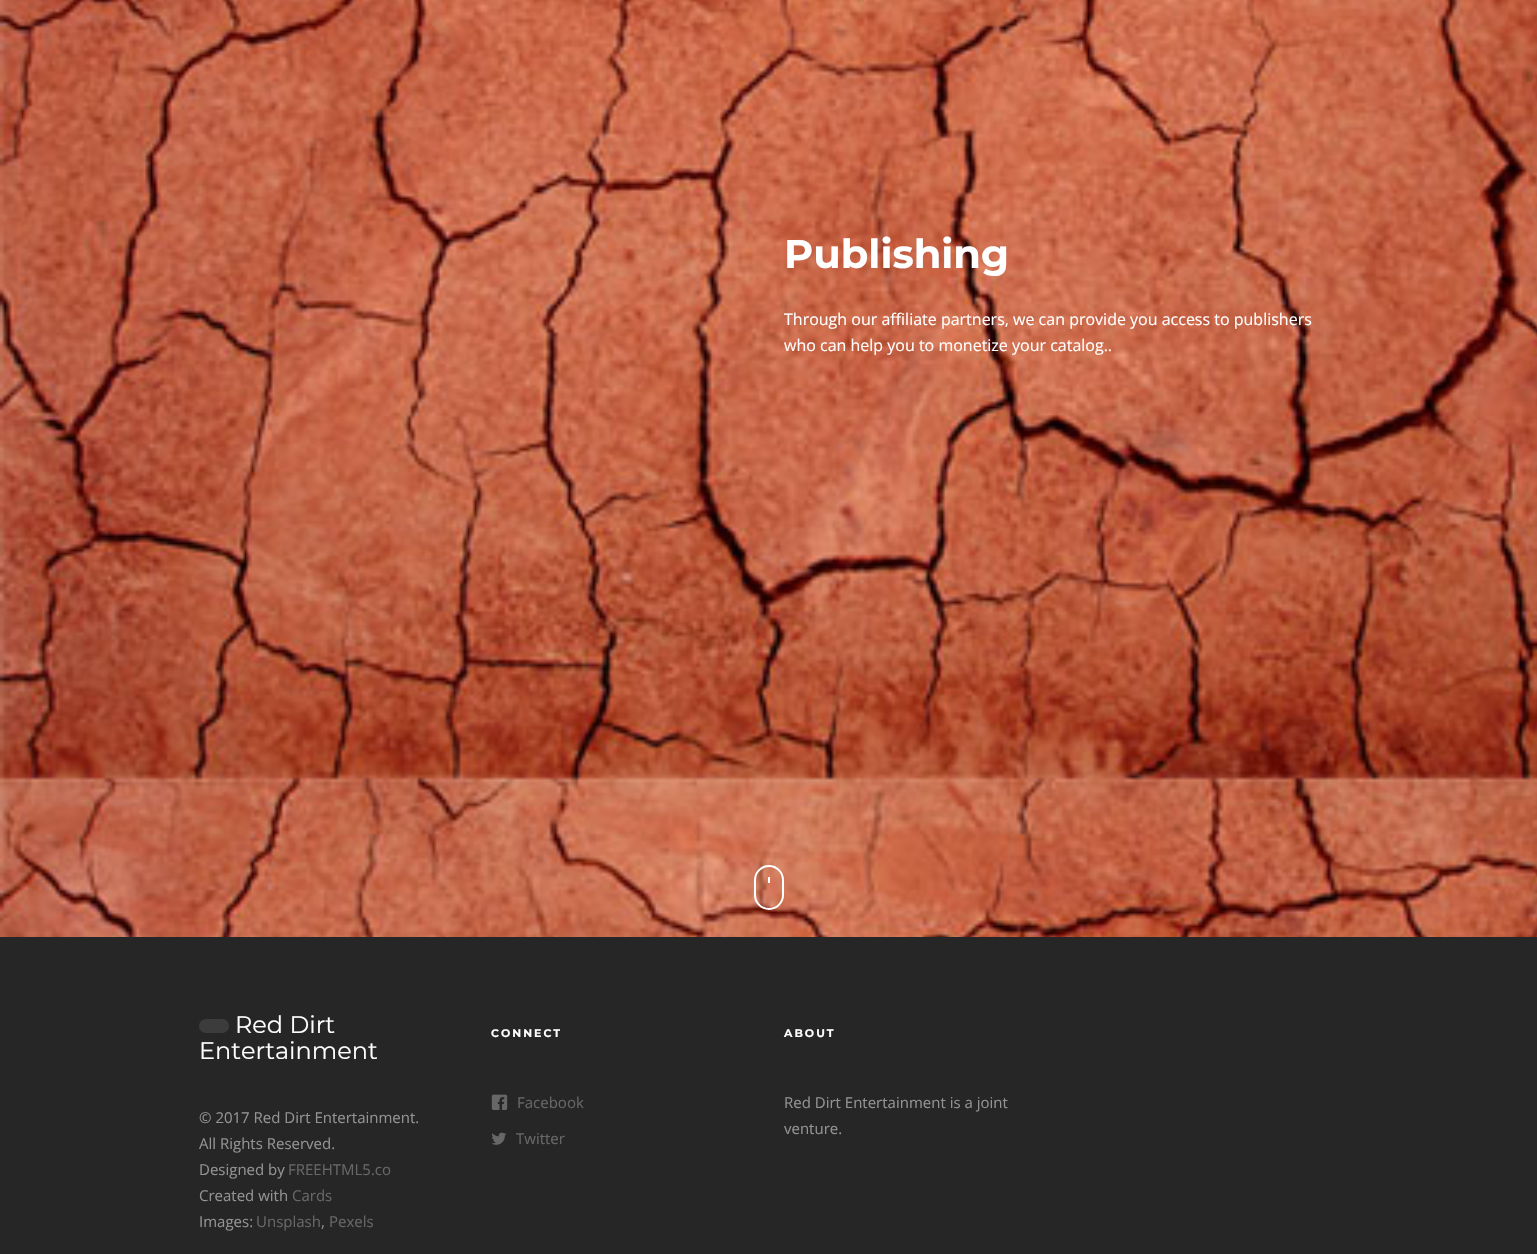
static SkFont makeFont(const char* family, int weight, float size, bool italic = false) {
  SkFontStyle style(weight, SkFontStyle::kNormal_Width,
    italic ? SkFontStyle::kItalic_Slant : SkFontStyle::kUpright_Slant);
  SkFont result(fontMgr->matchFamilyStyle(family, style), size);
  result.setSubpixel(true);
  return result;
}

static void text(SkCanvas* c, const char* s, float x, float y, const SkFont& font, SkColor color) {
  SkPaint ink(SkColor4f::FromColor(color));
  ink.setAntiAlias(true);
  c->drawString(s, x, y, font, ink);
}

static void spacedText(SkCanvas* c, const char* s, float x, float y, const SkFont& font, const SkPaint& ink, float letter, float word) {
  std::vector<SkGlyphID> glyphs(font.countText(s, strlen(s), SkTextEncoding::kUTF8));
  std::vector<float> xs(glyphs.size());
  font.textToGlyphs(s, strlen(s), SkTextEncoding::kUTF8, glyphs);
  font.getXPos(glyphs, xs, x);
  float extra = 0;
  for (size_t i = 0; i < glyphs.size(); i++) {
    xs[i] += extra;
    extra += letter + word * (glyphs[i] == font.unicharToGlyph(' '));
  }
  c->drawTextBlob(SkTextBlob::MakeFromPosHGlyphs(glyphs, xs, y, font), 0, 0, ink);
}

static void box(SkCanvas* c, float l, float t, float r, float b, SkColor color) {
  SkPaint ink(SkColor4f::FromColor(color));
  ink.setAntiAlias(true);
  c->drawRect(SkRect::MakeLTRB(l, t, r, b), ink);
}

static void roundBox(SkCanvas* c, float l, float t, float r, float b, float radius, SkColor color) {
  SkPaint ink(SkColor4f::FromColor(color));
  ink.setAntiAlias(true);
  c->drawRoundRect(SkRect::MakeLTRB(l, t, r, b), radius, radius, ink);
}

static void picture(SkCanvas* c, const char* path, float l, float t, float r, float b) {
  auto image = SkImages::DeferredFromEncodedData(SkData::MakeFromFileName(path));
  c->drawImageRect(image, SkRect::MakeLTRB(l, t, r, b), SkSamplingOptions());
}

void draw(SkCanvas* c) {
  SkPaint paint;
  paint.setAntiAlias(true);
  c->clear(0xff262626);
  picture(c, "img_01.png", 0, 0, 1537, 937);
  SkFont face1 = makeFont("Montserrat", 700, 40);
  text(c, "Publishing", 784, 268, face1, 0xffffffff);
  SkFont face2 = makeFont("Open Sans", 400, 16);
  text(c, "Through our affiliate partners, we can provide you access to publishers", 784, 325, face2, 0xffffffff);
  text(c, "who can help you to monetize your catalog..", 784, 351, face2, 0xffffffff);
  paint.setStyle(SkPaint::kStroke_Style);
  paint.setStrokeWidth(2);
  paint.setColor(0xffffffff);
  c->drawRoundRect(SkRect::MakeLTRB(755, 866, 783, 909), 14, 14, paint);
  box(c, 768, 877, 770, 883, 0xffffffff);
  roundBox(c, 199, 1019, 229, 1033, 7, 0xff3c3c3c);
  SkFont face3 = makeFont("Montserrat", 400, 24);
  text(c, "Red Dirt", 235, 1033, face3, 0xffffffff);
  text(c, "Entertainment", 199, 1059, face3, 0xffffffff);
  SkFont face4 = makeFont("Open Sans", 400, 15);
  text(c, "© 2017 Red Dirt Entertainment.", 199, 1123, face4, 0xff939393);
  text(c, "All Rights Reserved.", 199, 1149, face4, 0xff939393);
  text(c, "Designed by", 199, 1175, face4, 0xff939393);
  text(c, "FREEHTML5.co", 288, 1175, face4, 0xff676767);
  text(c, "Created with", 199, 1201, face4, 0xff939393);
  text(c, "Cards", 292, 1201, face4, 0xff676767);
  text(c, "Images:", 199, 1227, face4, 0xff939393);
  text(c, "Unsplash", 256, 1227, face4, 0xff676767);
  text(c, ",", 321, 1227, face4, 0xff939393);
  text(c, "Pexels", 329, 1227, face4, 0xff676767);
  SkFont face5 = makeFont("Montserrat", 700, 11);
  paint.setStyle(SkPaint::kFill_Style);
  spacedText(c, "CONNECT", 491, 1037, face5, paint, 2, 0);
  picture(c, "img_02.png", 491, 1094, 508, 1110);
  text(c, "Facebook", 517, 1108, face4, 0xff676767);
  picture(c, "img_03.png", 491, 1132, 506, 1145);
  text(c, "Twitter", 516, 1144, face4, 0xff676767);
  spacedText(c, "ABOUT", 784, 1037, face5, paint, 2, 0);
  text(c, "Red Dirt Entertainment is a joint", 784, 1108, face4, 0xff939393);
  text(c, "venture.", 784, 1134, face4, 0xff939393);
}
